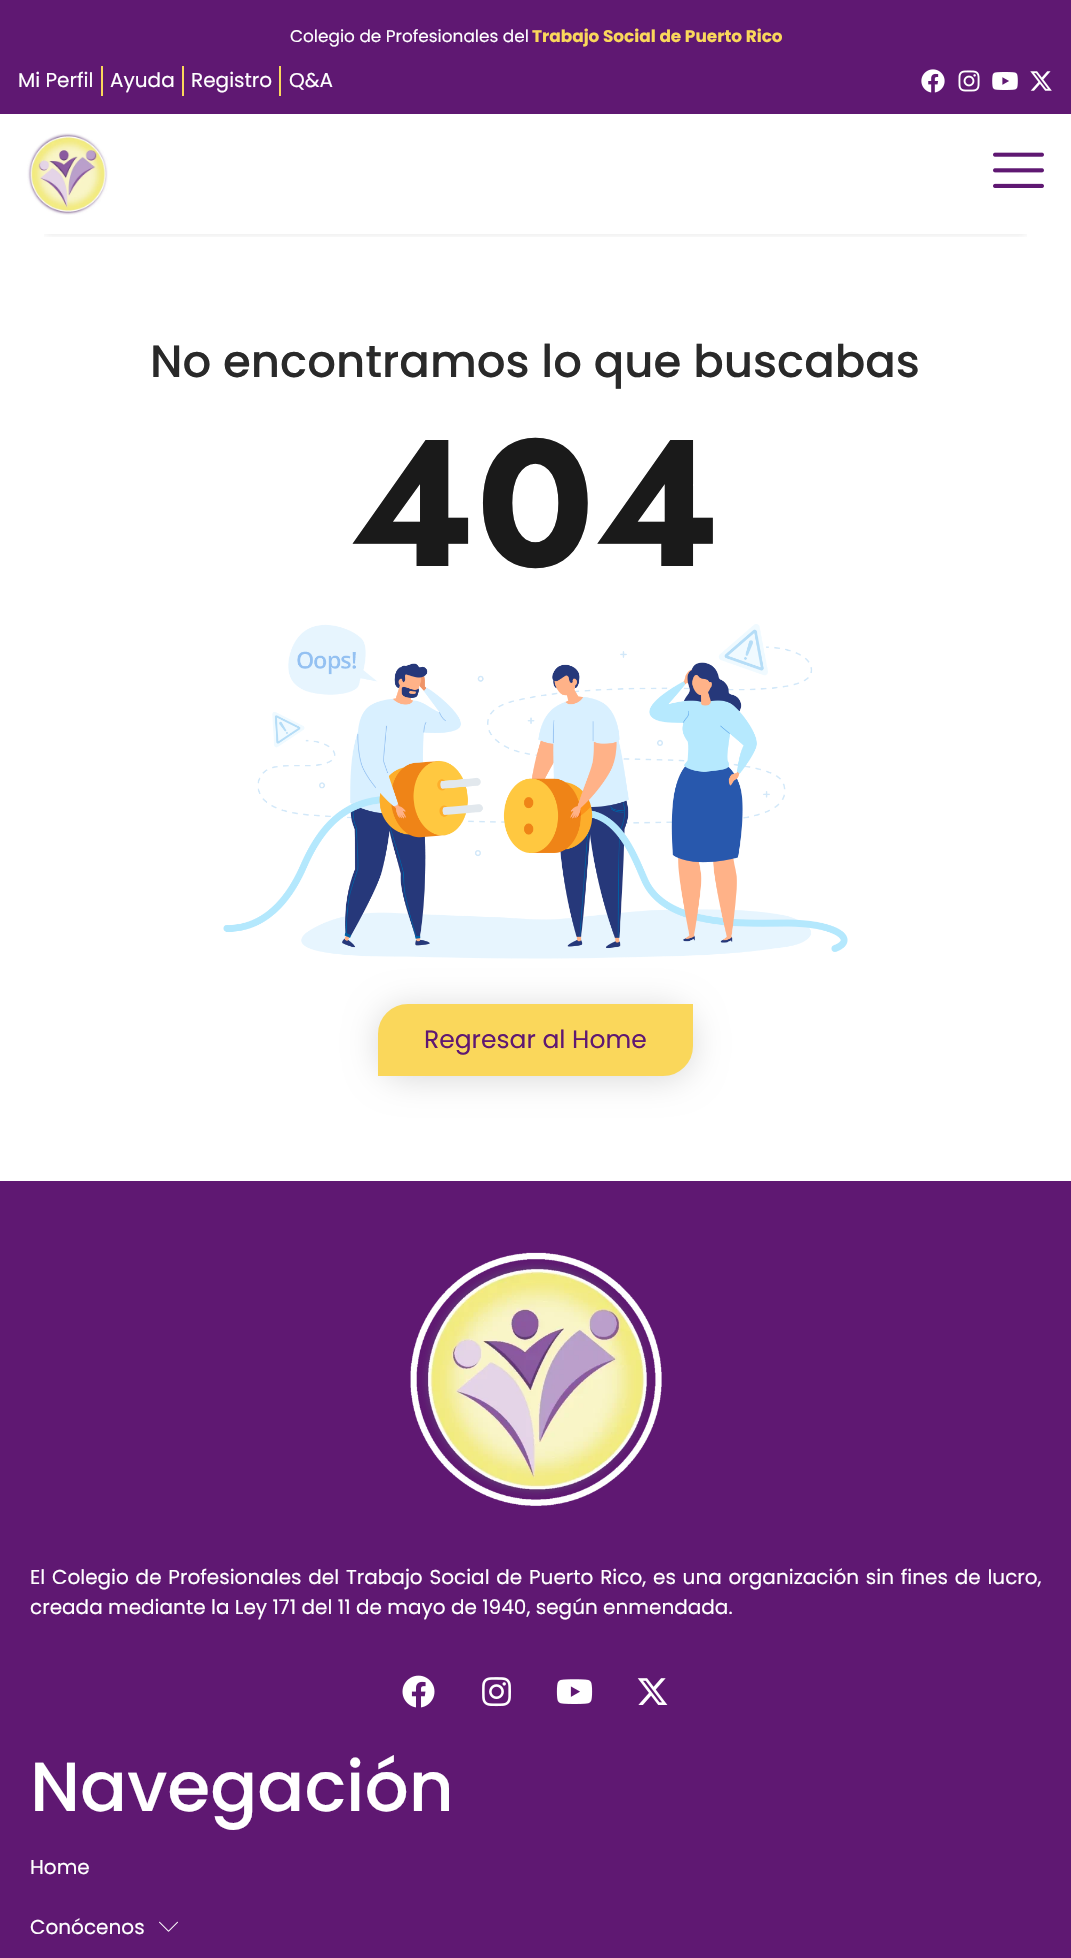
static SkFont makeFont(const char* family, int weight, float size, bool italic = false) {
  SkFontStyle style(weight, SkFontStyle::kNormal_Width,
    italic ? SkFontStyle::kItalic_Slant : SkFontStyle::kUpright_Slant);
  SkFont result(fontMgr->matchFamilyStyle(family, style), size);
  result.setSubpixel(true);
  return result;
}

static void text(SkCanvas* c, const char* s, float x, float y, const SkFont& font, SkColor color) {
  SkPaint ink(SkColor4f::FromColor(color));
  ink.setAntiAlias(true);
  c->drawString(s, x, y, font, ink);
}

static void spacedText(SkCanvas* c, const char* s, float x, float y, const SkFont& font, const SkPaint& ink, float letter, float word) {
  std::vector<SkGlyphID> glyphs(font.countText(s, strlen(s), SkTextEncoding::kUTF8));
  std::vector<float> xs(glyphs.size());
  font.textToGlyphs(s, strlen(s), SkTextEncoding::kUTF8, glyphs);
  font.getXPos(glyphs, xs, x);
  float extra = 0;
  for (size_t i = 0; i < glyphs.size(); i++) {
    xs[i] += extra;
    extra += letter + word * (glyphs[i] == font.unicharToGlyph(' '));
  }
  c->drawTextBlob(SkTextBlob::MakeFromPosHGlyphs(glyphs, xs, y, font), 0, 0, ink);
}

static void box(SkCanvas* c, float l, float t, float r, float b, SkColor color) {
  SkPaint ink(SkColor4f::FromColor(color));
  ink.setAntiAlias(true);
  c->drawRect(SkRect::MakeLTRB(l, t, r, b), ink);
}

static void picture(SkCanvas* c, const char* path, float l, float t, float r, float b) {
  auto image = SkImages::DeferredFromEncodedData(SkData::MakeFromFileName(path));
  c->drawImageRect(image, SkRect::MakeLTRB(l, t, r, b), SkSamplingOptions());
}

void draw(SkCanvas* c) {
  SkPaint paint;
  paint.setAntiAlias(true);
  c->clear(0xffffffff);
  box(c, 0, 0, 1071, 114, 0xff5f1872);
  SkFont face1 = makeFont("Poppins", 400, 16.9f);
  text(c, "Colegio de Profesionales del", 290, 42, face1, 0xffffffff);
  SkFont face2 = makeFont("Poppins", 700, 16.9f);
  text(c, "Trabajo Social de Puerto Rico", 532, 42, face2, 0xfffad75b);
  SkFont face3 = makeFont("Poppins", 400, 20.03f);
  text(c, "Mi Perfil", 18, 87, face3, 0xffffffff);
  box(c, 101, 66, 103, 96, 0xfffad75b);
  text(c, "Ayuda", 110, 87, face3, 0xffffffff);
  box(c, 182, 66, 184, 96, 0xfffad75b);
  text(c, "Registro", 191, 87, face3, 0xffffffff);
  box(c, 279, 66, 281, 96, 0xfffad75b);
  text(c, "Q&A", 289, 87, face3, 0xffffffff);
  picture(c, "img_01.png", 921, 69, 945, 93);
  picture(c, "img_02.png", 958, 70, 980, 92);
  picture(c, "img_03.png", 992, 72, 1018, 90);
  picture(c, "img_04.png", 1030, 71, 1052, 91);
  c->save();
  c->clipRect(SkRect::MakeLTRB(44, 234, 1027, 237));
  paint.setColor(0x1a000000);
  paint.setMaskFilter(SkMaskFilter::MakeBlur(kNormal_SkBlurStyle, 4));
  c->drawRect(SkRect::MakeLTRB(45, 204, 1026, 234), paint);
  paint.setMaskFilter(nullptr);
  c->restore();
  picture(c, "img_05.png", 27, 133, 108, 215);
  picture(c, "img_06.png", 993, 152, 1044, 188);
  SkFont face4 = makeFont("Poppins", 500, 45.1f);
  text(c, "No encontramos lo que buscabas", 150, 377, face4, 0xff292929);
  SkFont face5 = makeFont("Jost", 700, 180);
  text(c, "404", 350, 566, face5, 0xff1a1a1a);
  picture(c, "img_07.png", 223, 624, 848, 959);
  paint.setColor(0x26000000);
  paint.setMaskFilter(SkMaskFilter::MakeBlur(kNormal_SkBlurStyle, 16.5f));
  c->drawRoundRect(SkRect::MakeLTRB(378, 1007, 693, 1079), 30, 30, paint);
  paint.setMaskFilter(nullptr);
  paint.setColor(0xfffad75b);
  c->drawPath(SkPathBuilder().moveTo(408, 1005).lineTo(692, 1005).lineTo(692, 1046).cubicTo(692, 1062, 679, 1075, 663, 1075).lineTo(379, 1075).lineTo(379, 1034).cubicTo(379, 1018, 392, 1005, 408, 1005).close().detach(), paint);
  paint.setStyle(SkPaint::kStroke_Style);
  paint.setStrokeWidth(2);
  c->drawPath(SkPathBuilder().moveTo(408, 1005).lineTo(692, 1005).lineTo(692, 1046).cubicTo(692, 1062, 679, 1075, 663, 1075).lineTo(379, 1075).lineTo(379, 1034).cubicTo(379, 1018, 392, 1005, 408, 1005).close().detach(), paint);
  SkFont face6 = makeFont("Poppins", 400, 25);
  text(c, "Regresar al Home", 424, 1048, face6, 0xff5f1872);
  box(c, 0, 1181, 1071, 1958, 0xff5f1872);
  picture(c, "img_08.png", 410, 1252, 662, 1506);
  paint.setStyle(SkPaint::kFill_Style);
  paint.setColor(0xffffffff);
  spacedText(c, "El Colegio de Profesionales del Trabajo Social de Puerto Rico, es una organización sin fines de lucro,", 30, 1584, face3, paint, 0, 1.4f);
  text(c, "creada mediante la Ley 171 del 11 de mayo de 1940, según enmendada.", 30, 1614, face3, 0xffffffff);
  picture(c, "img_09.png", 402, 1675, 435, 1708);
  picture(c, "img_10.png", 482, 1677, 511, 1707);
  picture(c, "img_11.png", 556, 1679, 593, 1704);
  picture(c, "img_12.png", 637, 1678, 668, 1705);
  SkFont face7 = makeFont("Poppins", 500, 69.5f);
  text(c, "Navegación", 30, 1811, face7, 0xffffffff);
  text(c, "Home", 30, 1874, face3, 0xffffffff);
  text(c, "Conócenos", 30, 1934, face3, 0xffffffff);
  picture(c, "img_13.png", 159, 1921, 178, 1932);
}
